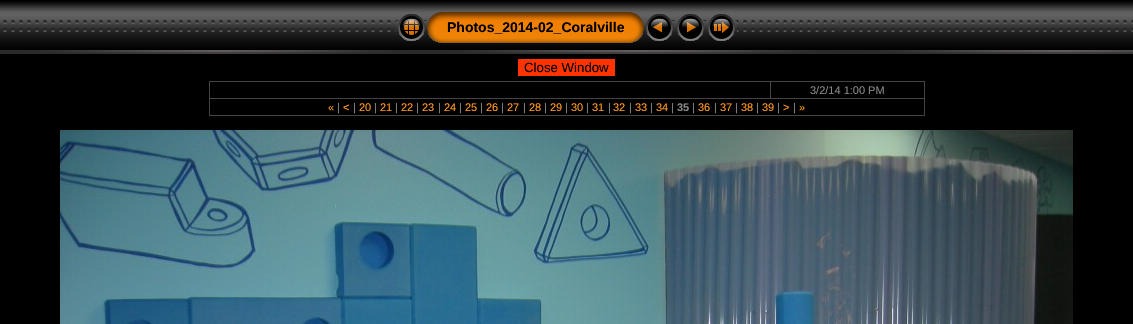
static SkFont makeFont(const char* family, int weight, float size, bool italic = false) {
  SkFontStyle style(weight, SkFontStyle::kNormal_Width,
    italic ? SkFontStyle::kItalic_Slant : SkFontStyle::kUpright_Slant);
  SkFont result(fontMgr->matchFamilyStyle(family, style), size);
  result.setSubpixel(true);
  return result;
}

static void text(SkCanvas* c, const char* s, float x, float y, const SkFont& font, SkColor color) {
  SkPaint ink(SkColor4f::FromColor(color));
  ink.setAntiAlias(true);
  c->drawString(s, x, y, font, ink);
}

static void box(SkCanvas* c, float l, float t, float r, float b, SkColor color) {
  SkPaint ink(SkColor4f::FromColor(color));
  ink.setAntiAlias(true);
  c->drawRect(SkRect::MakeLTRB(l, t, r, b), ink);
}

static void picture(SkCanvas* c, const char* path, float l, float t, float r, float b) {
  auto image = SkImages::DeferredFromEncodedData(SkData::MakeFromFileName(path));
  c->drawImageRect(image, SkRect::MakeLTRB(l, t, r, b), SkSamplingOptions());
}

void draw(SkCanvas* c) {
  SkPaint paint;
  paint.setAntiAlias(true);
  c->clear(0xff000000);
  picture(c, "img_01.png", 0, 1, 1133, 54);
  picture(c, "img_02.png", 396, 14, 427, 41);
  picture(c, "img_03.png", 427, 12, 447, 43);
  picture(c, "img_04.png", 447, 12, 624, 43);
  SkFont face1 = makeFont("Liberation Sans", 700, 14);
  text(c, "Photos_2014-02_Coralville", 447, 32, face1, 0xff000000);
  picture(c, "img_05.png", 624, 12, 644, 43);
  picture(c, "img_06.png", 644, 14, 675, 41);
  picture(c, "img_07.png", 675, 14, 706, 41);
  picture(c, "img_08.png", 706, 14, 737, 41);
  box(c, 518, 59, 615, 76, 0xffff3300);
  SkFont face2 = makeFont("Liberation Sans", 400, 13.25f);
  text(c, "Close Window", 524, 72, face2, 0xff000000);
  box(c, 209, 81, 925, 82, 0xff444444);
  box(c, 924, 81, 925, 116, 0xff444444);
  box(c, 209, 115, 925, 116, 0xff444444);
  box(c, 209, 81, 210, 116, 0xff444444);
  box(c, 209, 98, 925, 99, 0xff444444);
  box(c, 770, 81, 771, 99, 0xff444444);
  SkFont face3 = makeFont("Liberation Sans", 400, 11);
  text(c, "3/2/14 1:00 PM", 810, 94, face3, 0xff888888);
  text(c, "«", 328, 111, face3, 0xffff9924);
  text(c, "|", 337, 111, face3, 0xff888888);
  text(c, "<", 343, 111, face3, 0xffff9924);
  text(c, "|", 353, 111, face3, 0xff888888);
  text(c, "20", 359, 111, face3, 0xffff9924);
  text(c, "|", 374, 111, face3, 0xff888888);
  text(c, "21", 380, 111, face3, 0xffff9924);
  text(c, "|", 395, 111, face3, 0xff888888);
  text(c, "22", 401, 111, face3, 0xffff9924);
  text(c, "|", 416, 111, face3, 0xff888888);
  text(c, "23", 422, 111, face3, 0xffff9924);
  text(c, "|", 438, 111, face3, 0xff888888);
  text(c, "24", 444, 111, face3, 0xffff9924);
  text(c, "|", 459, 111, face3, 0xff888888);
  text(c, "25", 465, 111, face3, 0xffff9924);
  text(c, "|", 480, 111, face3, 0xff888888);
  text(c, "26", 486, 111, face3, 0xffff9924);
  text(c, "|", 501, 111, face3, 0xff888888);
  text(c, "27", 507, 111, face3, 0xffff9924);
  text(c, "|", 523, 111, face3, 0xff888888);
  text(c, "28", 529, 111, face3, 0xffff9924);
  text(c, "|", 544, 111, face3, 0xff888888);
  text(c, "29", 550, 111, face3, 0xffff9924);
  text(c, "|", 565, 111, face3, 0xff888888);
  text(c, "30", 571, 111, face3, 0xffff9924);
  text(c, "|", 586, 111, face3, 0xff888888);
  text(c, "31", 592, 111, face3, 0xffff9924);
  text(c, "|", 608, 111, face3, 0xff888888);
  text(c, "32", 613, 111, face3, 0xffff9924);
  text(c, "|", 629, 111, face3, 0xff888888);
  text(c, "33", 635, 111, face3, 0xffff9924);
  text(c, "|", 650, 111, face3, 0xff888888);
  text(c, "34", 656, 111, face3, 0xffff9924);
  text(c, "|", 671, 111, face3, 0xff888888);
  SkFont face4 = makeFont("Liberation Sans", 700, 11);
  text(c, "35", 677, 111, face4, 0xff888888);
  text(c, "|", 692, 111, face3, 0xff888888);
  text(c, "36", 698, 111, face3, 0xffff9924);
  text(c, "|", 714, 111, face3, 0xff888888);
  text(c, "37", 720, 111, face3, 0xffff9924);
  text(c, "|", 735, 111, face3, 0xff888888);
  text(c, "38", 741, 111, face3, 0xffff9924);
  text(c, "|", 756, 111, face3, 0xff888888);
  text(c, "39", 762, 111, face3, 0xffff9924);
  text(c, "|", 777, 111, face3, 0xff888888);
  text(c, ">", 783, 111, face3, 0xffff9924);
  text(c, "|", 793, 111, face3, 0xff888888);
  text(c, "»", 799, 111, face3, 0xffff9924);
  picture(c, "img_09.png", 60, 130, 1073, 324);
}
